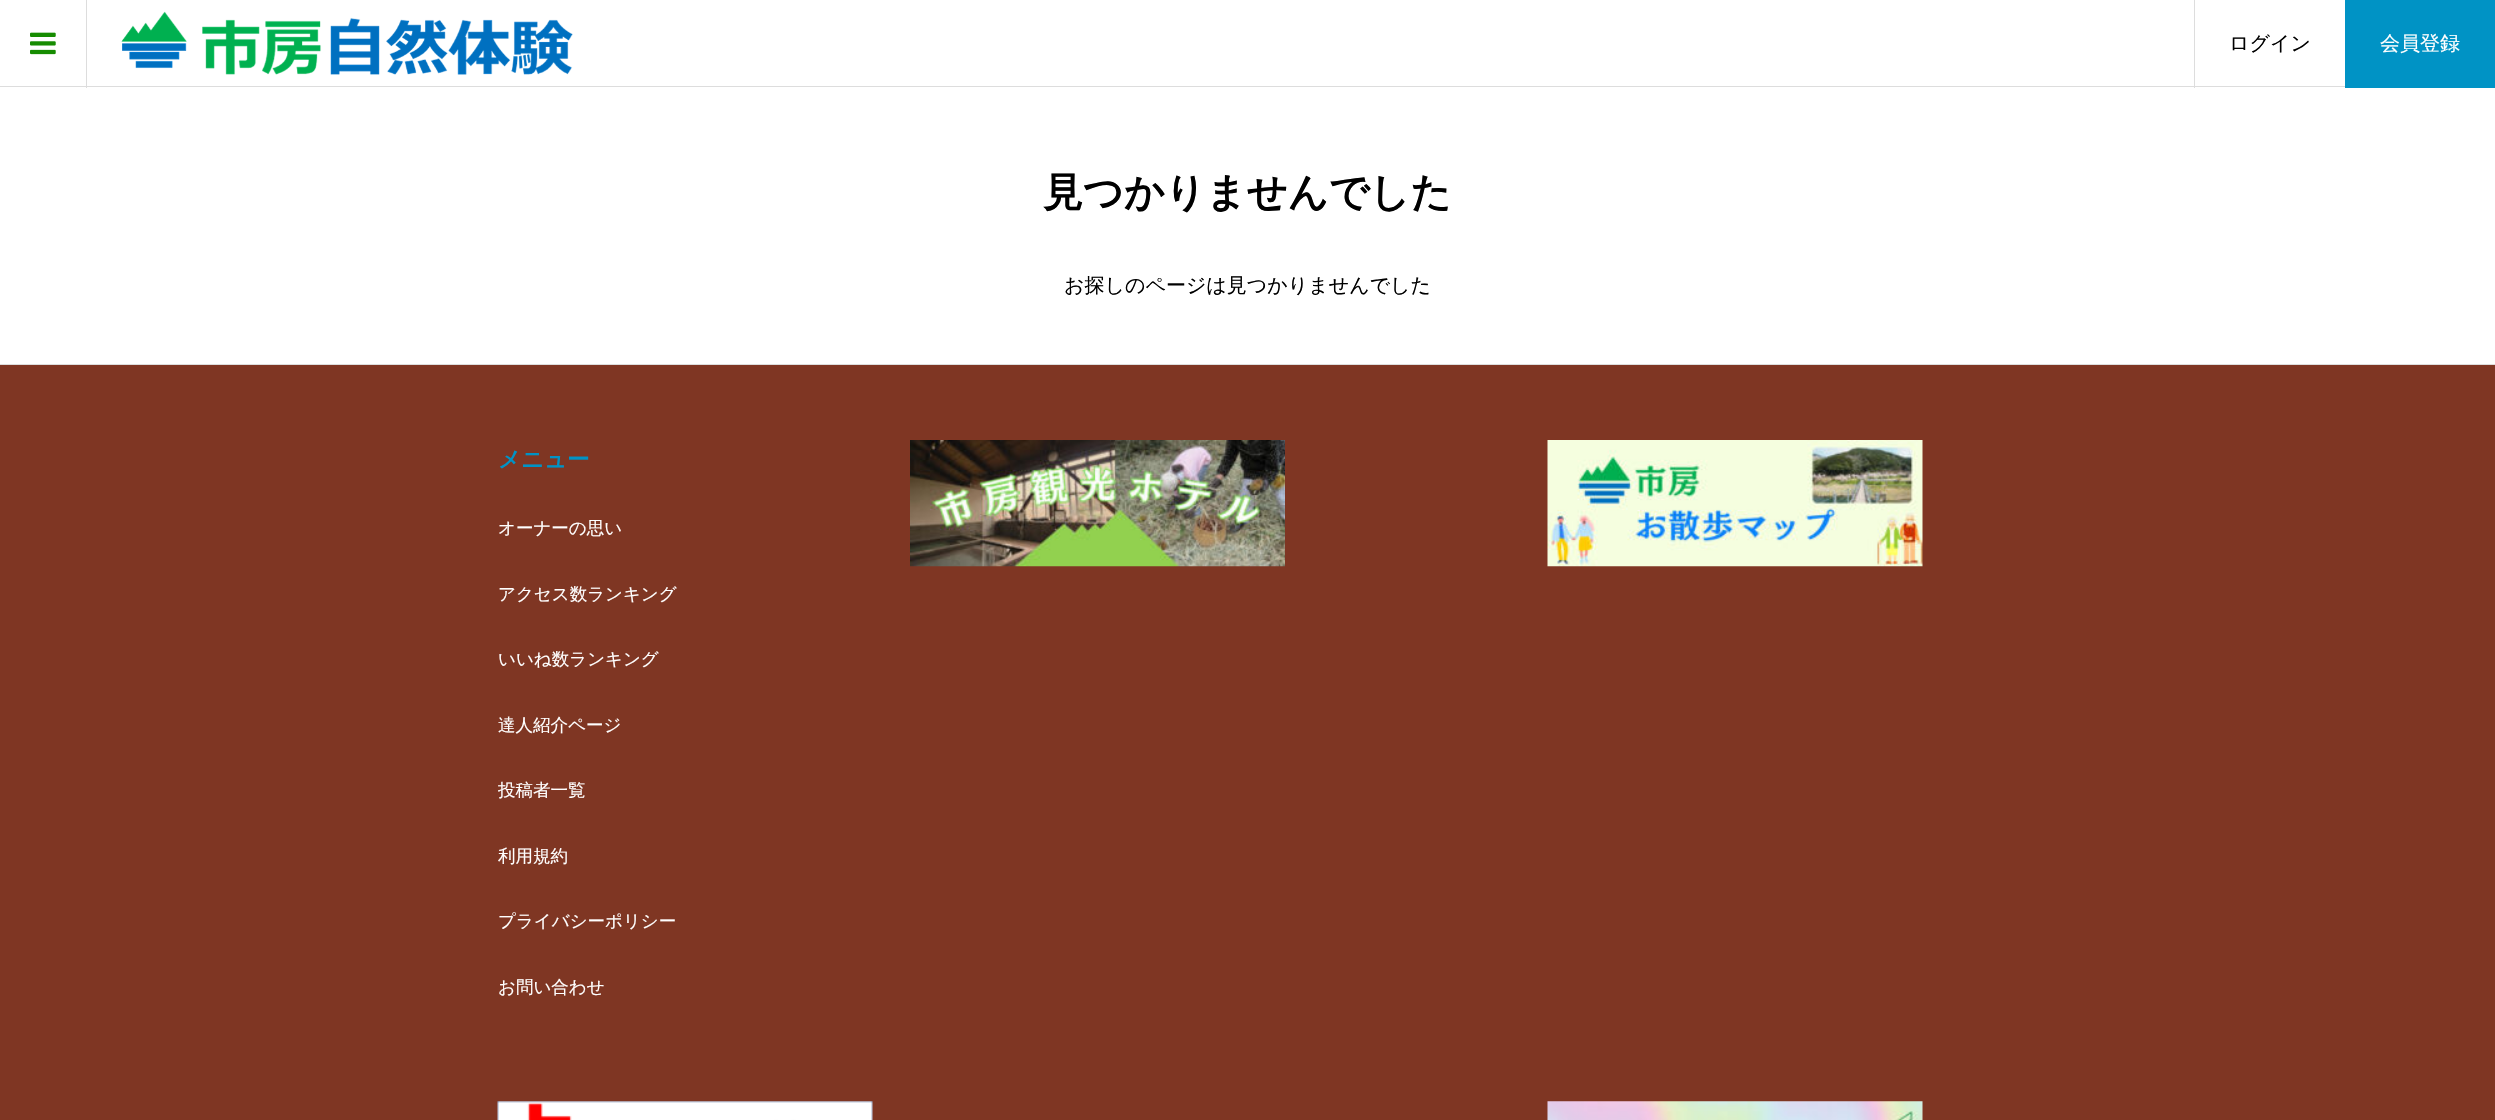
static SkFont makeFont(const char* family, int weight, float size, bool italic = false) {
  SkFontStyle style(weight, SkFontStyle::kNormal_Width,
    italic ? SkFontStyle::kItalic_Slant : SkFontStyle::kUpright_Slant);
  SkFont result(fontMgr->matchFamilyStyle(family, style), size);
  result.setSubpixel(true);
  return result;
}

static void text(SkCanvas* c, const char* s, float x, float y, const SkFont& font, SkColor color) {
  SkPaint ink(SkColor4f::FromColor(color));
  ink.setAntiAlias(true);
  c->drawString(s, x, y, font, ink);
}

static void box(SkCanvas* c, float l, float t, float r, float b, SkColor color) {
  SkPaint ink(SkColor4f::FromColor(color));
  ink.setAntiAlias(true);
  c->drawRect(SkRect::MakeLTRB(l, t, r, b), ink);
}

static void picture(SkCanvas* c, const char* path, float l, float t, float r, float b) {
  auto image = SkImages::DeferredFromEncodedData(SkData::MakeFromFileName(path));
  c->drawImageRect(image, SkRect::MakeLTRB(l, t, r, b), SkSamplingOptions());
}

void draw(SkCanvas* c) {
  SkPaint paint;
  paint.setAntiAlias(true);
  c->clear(0xffffffff);
  box(c, 0, 86, 2345, 87, 0xffdddddd);
  box(c, 86, 0, 87, 88, 0xffdddddd);
  picture(c, "img_01.png", 30, 32, 56, 55);
  picture(c, "img_02.png", 121, 11, 573, 75);
  box(c, 2194, 0, 2195, 88, 0xffdddddd);
  SkFont face1 = makeFont("WenQuanYi Zen Hei", 500, 20);
  text(c, "ログイン", 2229, 50, face1, 0xff000000);
  box(c, 2345, 0, 2495, 88, 0xff0093c5);
  text(c, "会員登録", 2380, 50, face1, 0xffffffff);
  SkFont face2 = makeFont("WenQuanYi Zen Hei", 700, 40);
  text(c, "見つかりませんでした", 1043, 206, face2, 0xff000000);
  text(c, "お探しのページは見つかりませんでした", 1064, 292, face1, 0xff000000);
  box(c, 0, 365, 2495, 1120, 0xff7f3623);
  box(c, 0, 364, 2495, 365, 0xffdddddd);
  SkFont face3 = makeFont("WenQuanYi Zen Hei", 700, 22.5f);
  text(c, "メニュー", 498, 467, face3, 0xff0093c5);
  SkFont face4 = makeFont("WenQuanYi Zen Hei", 500, 17.5f);
  text(c, "オーナーの思い", 498, 534, face4, 0xffffffff);
  text(c, "アクセス数ランキング", 498, 600, face4, 0xffffffff);
  text(c, "いいね数ランキング", 498, 665, face4, 0xffffffff);
  text(c, "達人紹介ページ", 498, 731, face4, 0xffffffff);
  text(c, "投稿者一覧", 498, 796, face4, 0xffffffff);
  text(c, "利用規約", 498, 862, face4, 0xffffffff);
  text(c, "プライバシーポリシー", 498, 927, face4, 0xffffffff);
  text(c, "お問い合わせ", 498, 993, face4, 0xffffffff);
  picture(c, "img_03.png", 910, 440, 1285, 567);
  picture(c, "img_04.png", 1547, 440, 1923, 567);
  picture(c, "img_05.png", 497, 1101, 873, 1120);
  picture(c, "img_06.png", 1547, 1101, 1923, 1120);
}
